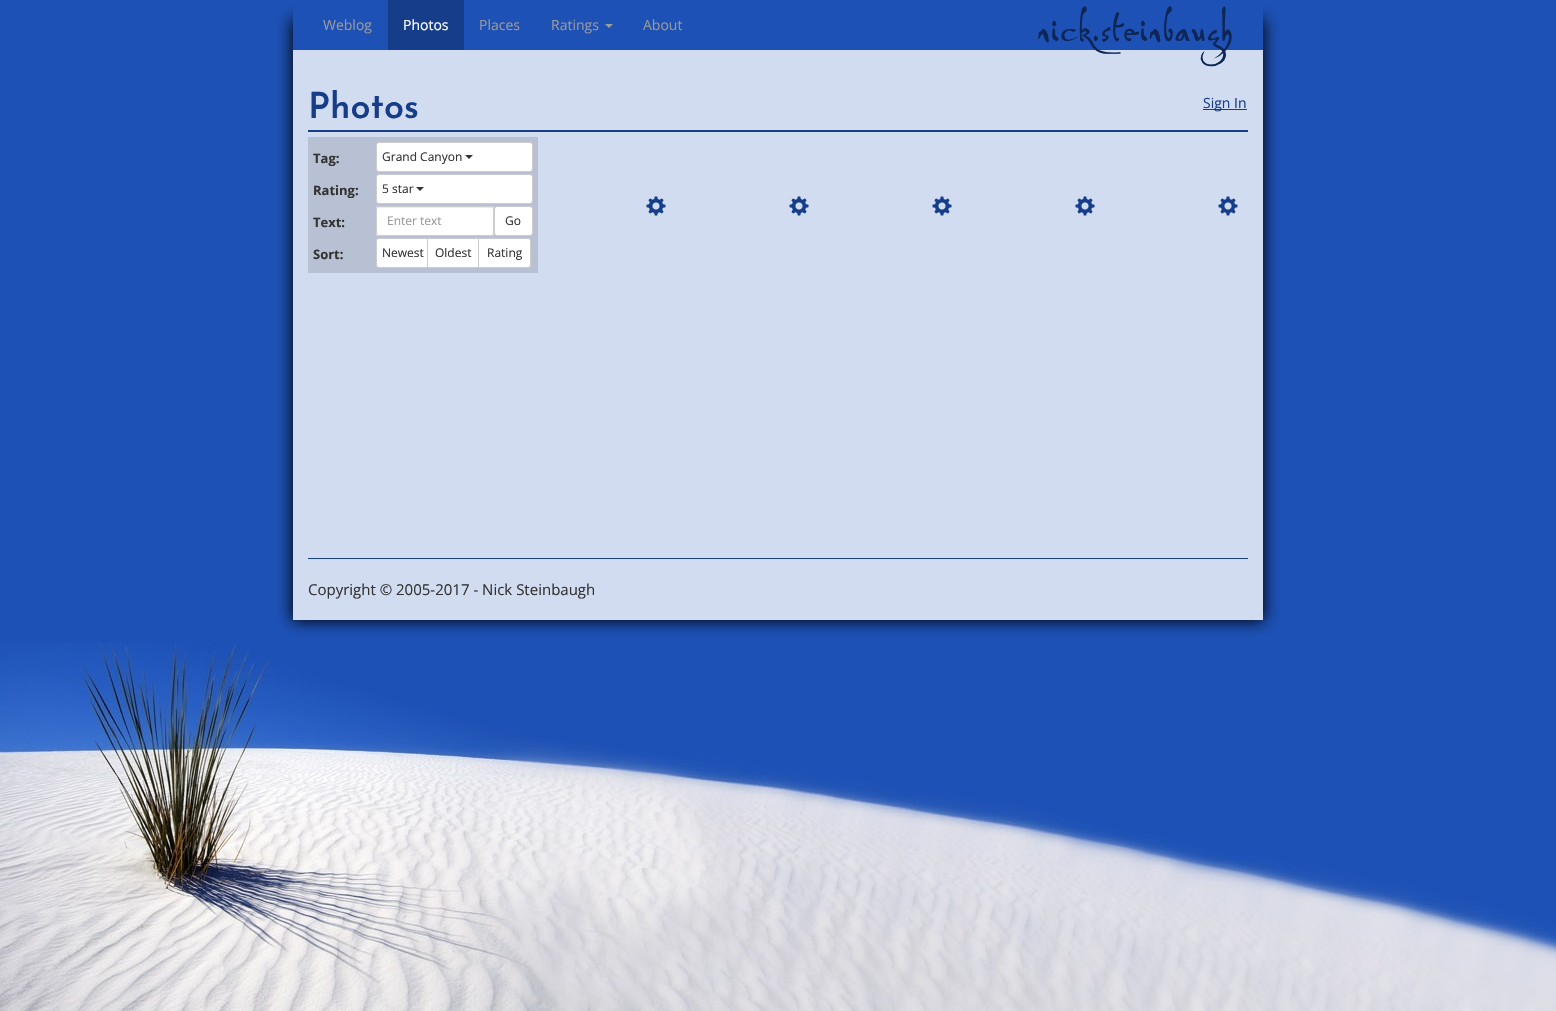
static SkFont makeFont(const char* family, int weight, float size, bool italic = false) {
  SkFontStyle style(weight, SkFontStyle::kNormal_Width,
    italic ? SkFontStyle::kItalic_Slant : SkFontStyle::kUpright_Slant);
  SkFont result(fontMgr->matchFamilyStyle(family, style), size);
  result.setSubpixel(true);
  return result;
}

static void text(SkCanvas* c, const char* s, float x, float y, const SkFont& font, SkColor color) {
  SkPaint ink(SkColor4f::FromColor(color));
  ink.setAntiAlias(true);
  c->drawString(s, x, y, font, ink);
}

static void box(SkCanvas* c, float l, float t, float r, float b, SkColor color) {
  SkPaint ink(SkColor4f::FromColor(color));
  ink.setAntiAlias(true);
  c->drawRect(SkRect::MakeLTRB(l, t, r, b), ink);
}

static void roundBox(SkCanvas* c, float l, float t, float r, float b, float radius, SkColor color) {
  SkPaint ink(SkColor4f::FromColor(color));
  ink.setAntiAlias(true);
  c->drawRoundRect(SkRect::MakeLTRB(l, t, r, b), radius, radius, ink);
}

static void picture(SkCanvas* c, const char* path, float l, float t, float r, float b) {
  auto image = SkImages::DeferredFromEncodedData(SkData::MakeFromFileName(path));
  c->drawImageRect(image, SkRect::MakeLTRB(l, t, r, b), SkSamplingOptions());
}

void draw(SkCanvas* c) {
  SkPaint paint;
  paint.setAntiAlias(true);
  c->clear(0xff1d51b6);
  picture(c, "img_01.png", 0, 642, 1556, 1011);
  paint.setColor(0xff000000);
  paint.setMaskFilter(SkMaskFilter::MakeBlur(kNormal_SkBlurStyle, 7.5f));
  c->drawRect(SkRect::MakeLTRB(292, 19, 1264, 621), paint);
  paint.setMaskFilter(nullptr);
  box(c, 293, 3, 1263, 50, 0xff1d51b6);
  SkFont face1 = makeFont("Open Sans", 400, 14);
  text(c, "Weblog", 323, 30, face1, 0xff999999);
  box(c, 388, 0, 464, 50, 0xff163d8a);
  text(c, "Photos", 403, 30, face1, 0xffffffff);
  text(c, "Places", 479, 30, face1, 0xff999999);
  text(c, "Ratings", 551, 30, face1, 0xff999999);
  paint.setColor(0xff9d9d9d);
  c->drawPath(SkPathBuilder().moveTo(605, 24).lineTo(613, 24).lineTo(609, 28).close().detach(), paint);
  text(c, "About", 643, 30, face1, 0xff999999);
  box(c, 293, 50, 1263, 620, 0xffd2dcf1);
  SkFont face2 = makeFont("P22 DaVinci", 400, 58);
  text(c, "nick.steinbaugh", 1037, 41, face2, 0xff0e2655);
  box(c, 308, 130, 1248, 132, 0xff163d8a);
  SkFont face3 = makeFont("Josefin Sans", 600, 36);
  text(c, "Photos", 308, 118, face3, 0xff163d8a);
  box(c, 308, 137, 538, 273, 0xffb8c1d3);
  SkFont face4 = makeFont("Open Sans", 700, 13);
  text(c, "Tag:", 313, 163, face4, 0xff333333);
  paint.setColor(0xffffffff);
  c->drawRoundRect(SkRect::MakeLTRB(376.5f, 142.5f, 532.5f, 171.5f), 2.5f, 2.5f, paint);
  paint.setStyle(SkPaint::kStroke_Style);
  paint.setStrokeWidth(1);
  paint.setColor(0xffcccccc);
  c->drawRoundRect(SkRect::MakeLTRB(376.5f, 142.5f, 532.5f, 171.5f), 2.5f, 2.5f, paint);
  SkFont face5 = makeFont("Open Sans", 400, 12);
  text(c, "Grand Canyon", 382, 161, face5, 0xff333333);
  paint.setStyle(SkPaint::kFill_Style);
  paint.setColor(0xff333333);
  c->drawPath(SkPathBuilder().moveTo(465, 155).lineTo(473, 155).lineTo(469, 159).close().detach(), paint);
  text(c, "Rating:", 313, 195, face4, 0xff333333);
  paint.setColor(0xffffffff);
  c->drawRoundRect(SkRect::MakeLTRB(376.5f, 174.5f, 532.5f, 203.5f), 2.5f, 2.5f, paint);
  paint.setStyle(SkPaint::kStroke_Style);
  paint.setColor(0xffcccccc);
  c->drawRoundRect(SkRect::MakeLTRB(376.5f, 174.5f, 532.5f, 203.5f), 2.5f, 2.5f, paint);
  text(c, "5 star", 382, 193, face5, 0xff333333);
  paint.setStyle(SkPaint::kFill_Style);
  paint.setColor(0xff333333);
  c->drawPath(SkPathBuilder().moveTo(416, 187).lineTo(424, 187).lineTo(420, 191).close().detach(), paint);
  text(c, "Text:", 313, 227, face4, 0xff333333);
  roundBox(c, 376, 206, 494, 236, 3, 0xffffffff);
  paint.setColor(0xffececec);
  c->drawPath(SkPathBuilder().moveTo(379, 208).lineTo(491, 208).cubicTo(492, 208, 493, 209, 493, 210).cubicTo(493, 209, 493, 207, 491, 207).lineTo(379, 207).cubicTo(377, 207, 377, 209, 377, 210).cubicTo(377, 209, 378, 208, 379, 208).close().detach(), paint);
  paint.setStyle(SkPaint::kStroke_Style);
  paint.setColor(0xffcccccc);
  c->drawRoundRect(SkRect::MakeLTRB(376.5f, 206.5f, 493.5f, 235.5f), 2.5f, 2.5f, paint);
  text(c, "Enter text", 387, 225, face5, 0xff999999);
  paint.setStyle(SkPaint::kFill_Style);
  paint.setColor(0xffffffff);
  c->drawRoundRect(SkRect::MakeLTRB(494.5f, 206.5f, 532.5f, 235.5f), 2.5f, 2.5f, paint);
  paint.setStyle(SkPaint::kStroke_Style);
  paint.setColor(0xffcccccc);
  c->drawRoundRect(SkRect::MakeLTRB(494.5f, 206.5f, 532.5f, 235.5f), 2.5f, 2.5f, paint);
  text(c, "Go", 505, 225, face5, 0xff333333);
  text(c, "Sort:", 313, 259, face4, 0xff333333);
  paint.setStyle(SkPaint::kFill_Style);
  paint.setColor(0xffffffff);
  c->drawPath(SkPathBuilder().moveTo(379, 238.5f).lineTo(427.5f, 238.5f).lineTo(427.5f, 267.5f).lineTo(379, 267.5f).cubicTo(377.5f, 267.5f, 376.5f, 266.5f, 376.5f, 265).lineTo(376.5f, 241).cubicTo(376.5f, 239.5f, 377.5f, 238.5f, 379, 238.5f).close().detach(), paint);
  paint.setStyle(SkPaint::kStroke_Style);
  paint.setColor(0xffcccccc);
  c->drawPath(SkPathBuilder().moveTo(379, 238.5f).lineTo(427.5f, 238.5f).lineTo(427.5f, 267.5f).lineTo(379, 267.5f).cubicTo(377.5f, 267.5f, 376.5f, 266.5f, 376.5f, 265).lineTo(376.5f, 241).cubicTo(376.5f, 239.5f, 377.5f, 238.5f, 379, 238.5f).close().detach(), paint);
  text(c, "Newest", 382, 257, face5, 0xff333333);
  paint.setStyle(SkPaint::kFill_Style);
  paint.setColor(0xffffffff);
  c->drawRect(SkRect::MakeLTRB(427.5f, 238.5f, 478.5f, 267.5f), paint);
  paint.setStyle(SkPaint::kStroke_Style);
  paint.setColor(0xffcccccc);
  c->drawRect(SkRect::MakeLTRB(427.5f, 238.5f, 478.5f, 267.5f), paint);
  text(c, "Oldest", 435, 257, face5, 0xff333333);
  paint.setStyle(SkPaint::kFill_Style);
  paint.setColor(0xffffffff);
  c->drawPath(SkPathBuilder().moveTo(478.5f, 238.5f).lineTo(528, 238.5f).cubicTo(529.5f, 238.5f, 530.5f, 239.5f, 530.5f, 241).lineTo(530.5f, 265).cubicTo(530.5f, 266.5f, 529.5f, 267.5f, 528, 267.5f).lineTo(478.5f, 267.5f).close().detach(), paint);
  paint.setStyle(SkPaint::kStroke_Style);
  paint.setColor(0xffcccccc);
  c->drawPath(SkPathBuilder().moveTo(478.5f, 238.5f).lineTo(528, 238.5f).cubicTo(529.5f, 238.5f, 530.5f, 239.5f, 530.5f, 241).lineTo(530.5f, 265).cubicTo(530.5f, 266.5f, 529.5f, 267.5f, 528, 267.5f).lineTo(478.5f, 267.5f).close().detach(), paint);
  text(c, "Rating", 487, 257, face5, 0xff333333);
  picture(c, "img_02.png", 646, 196, 666, 216);
  picture(c, "img_02.png", 789, 196, 809, 216);
  picture(c, "img_02.png", 932, 196, 952, 216);
  picture(c, "img_02.png", 1075, 196, 1095, 216);
  picture(c, "img_02.png", 1218, 196, 1238, 216);
  box(c, 1203, 109, 1247, 110, 0xff163d8a);
  text(c, "Sign In", 1203, 108, face1, 0xff163d8a);
  box(c, 308, 558, 1248, 559, 0xff163d8a);
  SkFont face6 = makeFont("Open Sans", 400, 15);
  text(c, "Copyright © 2005-2017 - Nick Steinbaugh", 308, 595, face6, 0xff333333);
}
